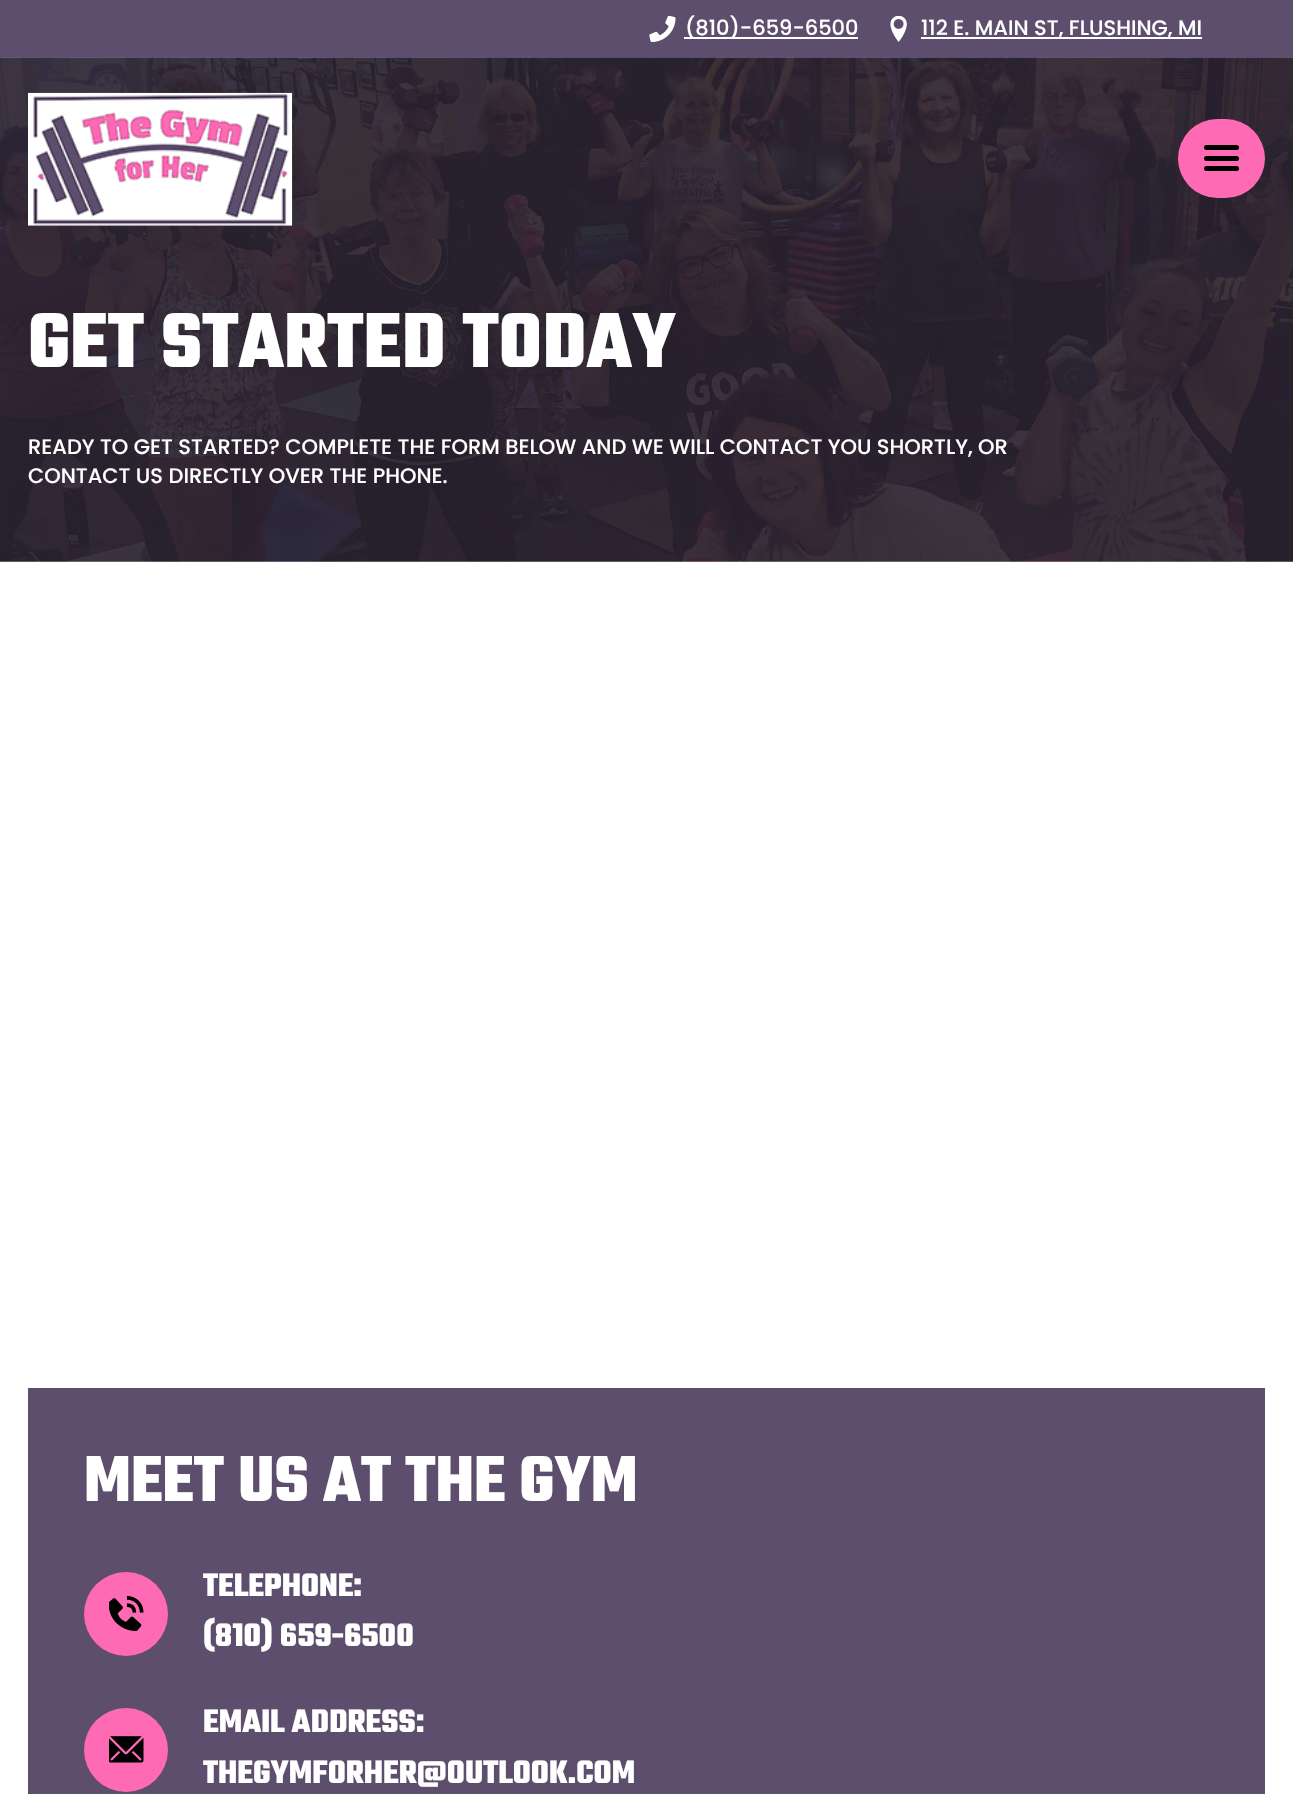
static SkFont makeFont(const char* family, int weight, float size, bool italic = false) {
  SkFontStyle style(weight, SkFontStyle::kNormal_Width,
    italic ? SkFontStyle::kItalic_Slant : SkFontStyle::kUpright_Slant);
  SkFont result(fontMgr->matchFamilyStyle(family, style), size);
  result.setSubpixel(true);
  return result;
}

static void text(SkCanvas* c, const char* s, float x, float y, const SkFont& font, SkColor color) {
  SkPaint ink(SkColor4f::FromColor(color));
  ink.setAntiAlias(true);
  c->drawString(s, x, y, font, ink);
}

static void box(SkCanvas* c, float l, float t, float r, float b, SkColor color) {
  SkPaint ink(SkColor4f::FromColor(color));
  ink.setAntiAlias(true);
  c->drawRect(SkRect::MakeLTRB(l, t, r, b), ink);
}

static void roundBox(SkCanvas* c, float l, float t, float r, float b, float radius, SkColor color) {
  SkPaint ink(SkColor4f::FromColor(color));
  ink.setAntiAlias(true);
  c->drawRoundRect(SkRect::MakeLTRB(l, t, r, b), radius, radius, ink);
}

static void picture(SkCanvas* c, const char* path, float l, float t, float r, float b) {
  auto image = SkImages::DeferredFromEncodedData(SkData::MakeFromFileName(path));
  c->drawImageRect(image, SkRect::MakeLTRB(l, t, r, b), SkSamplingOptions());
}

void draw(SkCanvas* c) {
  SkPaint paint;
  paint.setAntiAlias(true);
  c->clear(0xffffffff);
  box(c, 0, 0, 1293, 58, 0xff5d4e6d);
  picture(c, "img_01.png", 649, 16, 676, 42);
  box(c, 684, 37, 858, 39, 0xffffffff);
  SkFont face1 = makeFont("Poppins", 500, 21);
  text(c, "(810)-659-6500", 685, 35, face1, 0xffffffff);
  picture(c, "img_02.png", 890, 16, 907, 42);
  box(c, 921, 37, 1202, 39, 0xffffffff);
  text(c, "112 E. MAIN ST, FLUSHING, MI", 921, 35, face1, 0xffffffff);
  picture(c, "img_04.png", 0, 57, 1293, 562);
  picture(c, "img_03.png", 28, 92, 293, 226);
  roundBox(c, 1178, 119, 1265, 198, 39.5f, 0xffff6ab4);
  roundBox(c, 1204, 166, 1239, 171, 2.5f, 0xff000000);
  roundBox(c, 1204, 145, 1239, 150, 2.5f, 0xff000000);
  roundBox(c, 1204, 156, 1239, 161, 2.5f, 0xff000000);
  SkFont face2 = makeFont("Teko", 700, 84);
  text(c, "GET STARTED TODAY", 28, 367, face2, 0xffffffff);
  text(c, "READY TO GET STARTED? COMPLETE THE FORM BELOW AND WE WILL CONTACT YOU SHORTLY, OR", 28, 454, face1, 0xffffffff);
  text(c, "CONTACT US DIRECTLY OVER THE PHONE.", 28, 483, face1, 0xffffffff);
  box(c, 28, 1388, 1265, 1794, 0xff5d4e6d);
  SkFont face3 = makeFont("Teko", 700, 70);
  text(c, "MEET US AT THE GYM", 84, 1501, face3, 0xffffffff);
  paint.setColor(0xffff6ab4);
  c->drawCircle(126, 1614, 42, paint);
  picture(c, "img_05.png", 109, 1596, 144, 1631);
  SkFont face4 = makeFont("Teko", 700, 35);
  text(c, "TELEPHONE:", 203, 1596, face4, 0xffffffff);
  text(c, "(810) 659-6500", 203, 1646, face4, 0xffffffff);
  c->drawCircle(126, 1750, 42, paint);
  picture(c, "img_06.png", 109, 1736, 144, 1763);
  text(c, "EMAIL ADDRESS:", 203, 1732, face4, 0xffffffff);
  text(c, "THEGYMFORHER@OUTLOOK.COM", 203, 1783, face4, 0xffffffff);
}
